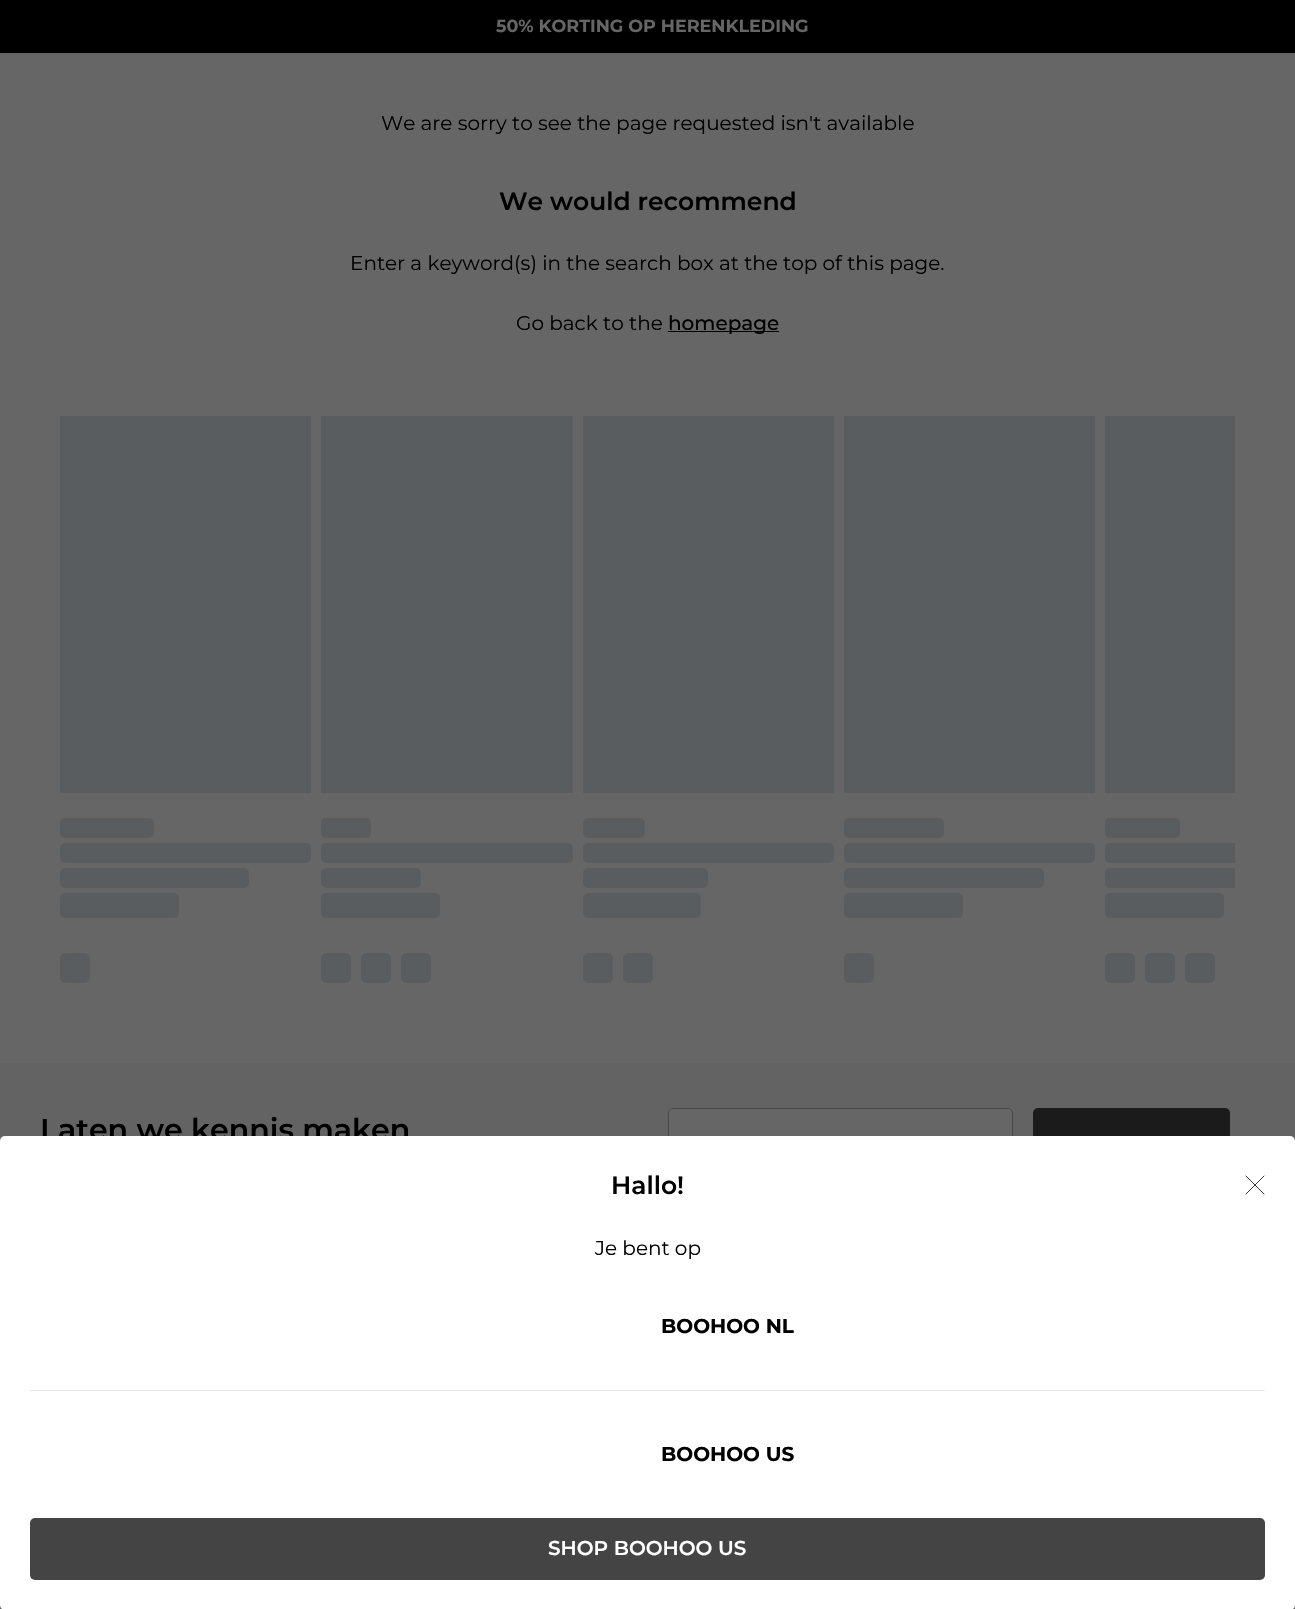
static SkFont makeFont(const char* family, int weight, float size, bool italic = false) {
  SkFontStyle style(weight, SkFontStyle::kNormal_Width,
    italic ? SkFontStyle::kItalic_Slant : SkFontStyle::kUpright_Slant);
  SkFont result(fontMgr->matchFamilyStyle(family, style), size);
  result.setSubpixel(true);
  return result;
}

static void text(SkCanvas* c, const char* s, float x, float y, const SkFont& font, SkColor color) {
  SkPaint ink(SkColor4f::FromColor(color));
  ink.setAntiAlias(true);
  c->drawString(s, x, y, font, ink);
}

static void box(SkCanvas* c, float l, float t, float r, float b, SkColor color) {
  SkPaint ink(SkColor4f::FromColor(color));
  ink.setAntiAlias(true);
  c->drawRect(SkRect::MakeLTRB(l, t, r, b), ink);
}

static void roundBox(SkCanvas* c, float l, float t, float r, float b, float radius, SkColor color) {
  SkPaint ink(SkColor4f::FromColor(color));
  ink.setAntiAlias(true);
  c->drawRoundRect(SkRect::MakeLTRB(l, t, r, b), radius, radius, ink);
}

void draw(SkCanvas* c) {
  SkPaint paint;
  paint.setAntiAlias(true);
  c->clear(0xff666666);
  box(c, 0, 0, 1295, 53, 0xff000000);
  SkFont face1 = makeFont("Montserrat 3", 100, 17.5f);
  text(c, "50% KORTING OP HERENKLEDING", 496, 32, face1, 0xff666666);
  SkFont face2 = makeFont("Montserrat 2", 100, 20);
  text(c, "We are sorry to see the page requested isn't available", 381, 130, face2, 0xff000000);
  SkFont face3 = makeFont("Montserrat", 100, 25);
  text(c, "We would recommend", 499, 210, face3, 0xff000000);
  text(c, "Enter a keyword(s) in the search box at the top of this page.", 350, 270, face2, 0xff000000);
  text(c, "Go back to the", 516, 330, face2, 0xff000000);
  box(c, 668, 331, 779, 332, 0xff000000);
  SkFont face4 = makeFont("Montserrat", 500, 20);
  text(c, "homepage", 668, 330, face4, 0xff000000);
  box(c, 60, 416, 311, 793, 0xff5a5d60);
  roundBox(c, 60, 818, 154, 838, 5, 0xff5a5d60);
  roundBox(c, 60, 843, 311, 863, 5, 0xff5a5d60);
  roundBox(c, 60, 868, 249, 888, 5, 0xff5a5d60);
  roundBox(c, 60, 893, 179, 918, 5, 0xff5a5d60);
  paint.setColor(0xff5a5d60);
  c->drawRoundRect(SkRect::MakeLTRB(60.5f, 953.5f, 89.5f, 982.5f), 4.5f, 4.5f, paint);
  paint.setStyle(SkPaint::kStroke_Style);
  paint.setStrokeWidth(1);
  paint.setColor(0xff5c5c5e);
  c->drawRoundRect(SkRect::MakeLTRB(60.5f, 953.5f, 89.5f, 982.5f), 4.5f, 4.5f, paint);
  box(c, 321, 416, 573, 793, 0xff5a5d60);
  roundBox(c, 321, 818, 371, 838, 5, 0xff5a5d60);
  roundBox(c, 321, 843, 573, 863, 5, 0xff5a5d60);
  roundBox(c, 321, 868, 421, 888, 5, 0xff5a5d60);
  roundBox(c, 321, 893, 440, 918, 5, 0xff5a5d60);
  paint.setStyle(SkPaint::kFill_Style);
  paint.setColor(0xff5a5d60);
  c->drawRoundRect(SkRect::MakeLTRB(321.5f, 953.5f, 350.5f, 982.5f), 4.5f, 4.5f, paint);
  paint.setStyle(SkPaint::kStroke_Style);
  paint.setColor(0xff5c5c5e);
  c->drawRoundRect(SkRect::MakeLTRB(321.5f, 953.5f, 350.5f, 982.5f), 4.5f, 4.5f, paint);
  paint.setStyle(SkPaint::kFill_Style);
  paint.setColor(0xff5a5d60);
  c->drawRoundRect(SkRect::MakeLTRB(361.5f, 953.5f, 390.5f, 982.5f), 4.5f, 4.5f, paint);
  paint.setStyle(SkPaint::kStroke_Style);
  paint.setColor(0xff5c5c5e);
  c->drawRoundRect(SkRect::MakeLTRB(361.5f, 953.5f, 390.5f, 982.5f), 4.5f, 4.5f, paint);
  paint.setStyle(SkPaint::kFill_Style);
  paint.setColor(0xff5a5d60);
  c->drawRoundRect(SkRect::MakeLTRB(401.5f, 953.5f, 430.5f, 982.5f), 4.5f, 4.5f, paint);
  paint.setStyle(SkPaint::kStroke_Style);
  paint.setColor(0xff5c5c5e);
  c->drawRoundRect(SkRect::MakeLTRB(401.5f, 953.5f, 430.5f, 982.5f), 4.5f, 4.5f, paint);
  box(c, 583, 416, 834, 793, 0xff5a5d60);
  roundBox(c, 583, 818, 645, 838, 5, 0xff5a5d60);
  roundBox(c, 583, 843, 834, 863, 5, 0xff5a5d60);
  roundBox(c, 583, 868, 708, 888, 5, 0xff5a5d60);
  roundBox(c, 583, 893, 701, 918, 5, 0xff5a5d60);
  paint.setStyle(SkPaint::kFill_Style);
  paint.setColor(0xff5a5d60);
  c->drawRoundRect(SkRect::MakeLTRB(583.5f, 953.5f, 612.5f, 982.5f), 4.5f, 4.5f, paint);
  paint.setStyle(SkPaint::kStroke_Style);
  paint.setColor(0xff5c5c5e);
  c->drawRoundRect(SkRect::MakeLTRB(583.5f, 953.5f, 612.5f, 982.5f), 4.5f, 4.5f, paint);
  paint.setStyle(SkPaint::kFill_Style);
  paint.setColor(0xff5a5d60);
  c->drawRoundRect(SkRect::MakeLTRB(623.5f, 953.5f, 652.5f, 982.5f), 4.5f, 4.5f, paint);
  paint.setStyle(SkPaint::kStroke_Style);
  paint.setColor(0xff5c5c5e);
  c->drawRoundRect(SkRect::MakeLTRB(623.5f, 953.5f, 652.5f, 982.5f), 4.5f, 4.5f, paint);
  box(c, 844, 416, 1095, 793, 0xff5a5d60);
  roundBox(c, 844, 818, 944, 838, 5, 0xff5a5d60);
  roundBox(c, 844, 843, 1095, 863, 5, 0xff5a5d60);
  roundBox(c, 844, 868, 1044, 888, 5, 0xff5a5d60);
  roundBox(c, 844, 893, 963, 918, 5, 0xff5a5d60);
  paint.setStyle(SkPaint::kFill_Style);
  paint.setColor(0xff5a5d60);
  c->drawRoundRect(SkRect::MakeLTRB(844.5f, 953.5f, 873.5f, 982.5f), 4.5f, 4.5f, paint);
  paint.setStyle(SkPaint::kStroke_Style);
  paint.setColor(0xff5c5c5e);
  c->drawRoundRect(SkRect::MakeLTRB(844.5f, 953.5f, 873.5f, 982.5f), 4.5f, 4.5f, paint);
  box(c, 1105, 416, 1235, 793, 0xff5a5d60);
  roundBox(c, 1105, 818, 1180, 838, 5, 0xff5a5d60);
  paint.setStyle(SkPaint::kFill_Style);
  paint.setColor(0xff5a5d60);
  c->drawPath(SkPathBuilder().moveTo(1110, 843).lineTo(1235, 843).lineTo(1235, 863).lineTo(1110, 863).cubicTo(1107, 863, 1105, 861, 1105, 858).lineTo(1105, 848).cubicTo(1105, 845, 1107, 843, 1110, 843).close().detach(), paint);
  c->drawPath(SkPathBuilder().moveTo(1110, 868).lineTo(1235, 868).lineTo(1235, 888).lineTo(1110, 888).cubicTo(1107, 888, 1105, 886, 1105, 883).lineTo(1105, 873).cubicTo(1105, 870, 1107, 868, 1110, 868).close().detach(), paint);
  roundBox(c, 1105, 893, 1224, 918, 5, 0xff5a5d60);
  c->drawRoundRect(SkRect::MakeLTRB(1105.5f, 953.5f, 1134.5f, 982.5f), 4.5f, 4.5f, paint);
  paint.setStyle(SkPaint::kStroke_Style);
  paint.setColor(0xff5c5c5e);
  c->drawRoundRect(SkRect::MakeLTRB(1105.5f, 953.5f, 1134.5f, 982.5f), 4.5f, 4.5f, paint);
  paint.setStyle(SkPaint::kFill_Style);
  paint.setColor(0xff5a5d60);
  c->drawRoundRect(SkRect::MakeLTRB(1145.5f, 953.5f, 1174.5f, 982.5f), 4.5f, 4.5f, paint);
  paint.setStyle(SkPaint::kStroke_Style);
  paint.setColor(0xff5c5c5e);
  c->drawRoundRect(SkRect::MakeLTRB(1145.5f, 953.5f, 1174.5f, 982.5f), 4.5f, 4.5f, paint);
  paint.setStyle(SkPaint::kFill_Style);
  paint.setColor(0xff5a5d60);
  c->drawRoundRect(SkRect::MakeLTRB(1185.5f, 953.5f, 1214.5f, 982.5f), 4.5f, 4.5f, paint);
  paint.setStyle(SkPaint::kStroke_Style);
  paint.setColor(0xff5c5c5e);
  c->drawRoundRect(SkRect::MakeLTRB(1185.5f, 953.5f, 1214.5f, 982.5f), 4.5f, 4.5f, paint);
  box(c, 0, 1063, 1295, 1141, 0xff636363);
  SkFont face5 = makeFont("Montserrat", 100, 30);
  text(c, "Laten we kennis maken", 40, 1140, face5, 0xff000000);
  paint.setStyle(SkPaint::kFill_Style);
  paint.setColor(0xff666666);
  c->drawRoundRect(SkRect::MakeLTRB(668.5f, 1108.5f, 1012.5f, 1169.5f), 4.5f, 4.5f, paint);
  paint.setStyle(SkPaint::kStroke_Style);
  paint.setColor(0xff484848);
  c->drawRoundRect(SkRect::MakeLTRB(668.5f, 1108.5f, 1012.5f, 1169.5f), 4.5f, 4.5f, paint);
  roundBox(c, 1033, 1108, 1230, 1170, 5, 0xff1b1b1b);
  roundBox(c, 0, 1136, 1295, 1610, 5, 0xffffffff);
  text(c, "Hallo!", 611, 1194, face3, 0xff000000);
  paint.setStrokeWidth(0.8f);
  paint.setStrokeCap(SkPaint::kRound_Cap);
  paint.setColor(0xff000000);
  c->drawPath(SkPathBuilder().moveTo(1264, 1176).lineTo(1246, 1194).moveTo(1246, 1176).lineTo(1264, 1194).detach(), paint);
  text(c, "Je bent op", 595, 1255, face2, 0xff000000);
  SkFont face6 = makeFont("Montserrat 3", 100, 20);
  text(c, "BOOHOO NL", 661, 1333, face6, 0xff000000);
  box(c, 30, 1390, 1265, 1391, 0xffe7e7e7);
  text(c, "BOOHOO US", 661, 1461, face6, 0xff000000);
  roundBox(c, 30, 1518, 1265, 1580, 5, 0xff444444);
  SkFont face7 = makeFont("Montserrat", 100, 20);
  text(c, "SHOP BOOHOO US", 548, 1555, face7, 0xffffffff);
}
